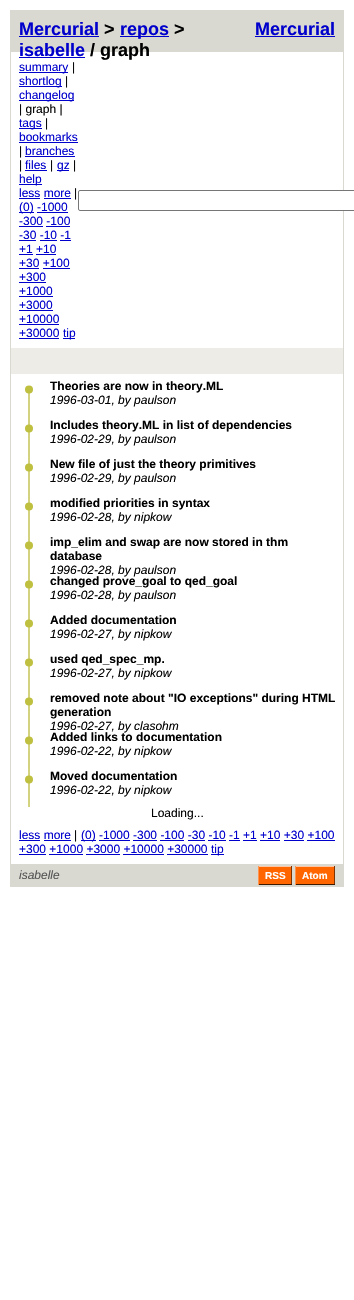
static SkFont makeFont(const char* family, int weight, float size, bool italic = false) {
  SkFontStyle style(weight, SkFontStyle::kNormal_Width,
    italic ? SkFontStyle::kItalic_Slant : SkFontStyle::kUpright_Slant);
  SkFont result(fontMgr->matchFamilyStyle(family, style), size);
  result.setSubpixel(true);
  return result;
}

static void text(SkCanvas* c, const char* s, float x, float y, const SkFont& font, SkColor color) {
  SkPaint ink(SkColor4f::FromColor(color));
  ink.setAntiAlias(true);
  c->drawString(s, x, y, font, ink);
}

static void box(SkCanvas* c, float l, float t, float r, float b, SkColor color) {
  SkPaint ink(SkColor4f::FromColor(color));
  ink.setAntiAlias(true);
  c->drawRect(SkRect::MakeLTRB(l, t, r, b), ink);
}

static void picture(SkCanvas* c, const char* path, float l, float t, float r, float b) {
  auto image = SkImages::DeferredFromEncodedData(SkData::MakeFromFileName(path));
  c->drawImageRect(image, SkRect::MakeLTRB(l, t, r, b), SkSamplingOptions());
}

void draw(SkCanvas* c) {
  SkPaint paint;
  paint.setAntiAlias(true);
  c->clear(0xffffffff);
  paint.setStyle(SkPaint::kStroke_Style);
  paint.setStrokeWidth(1);
  paint.setColor(0xffd9d8d1);
  c->drawRect(SkRect::MakeLTRB(10.5f, 10.5f, 343.5f, 886.5f), paint);
  box(c, 11, 11, 343, 52, 0xffd9d8d1);
  SkFont face1 = makeFont("Liberation Sans", 700, 18);
  text(c, "Mercurial", 19, 35, face1, 0xff0000cc);
  box(c, 19, 36, 99, 37, 0xff0000cc);
  text(c, ">", 104, 35, face1, 0xff000000);
  box(c, 120, 36, 169, 37, 0xff0000cc);
  text(c, "repos", 120, 35, face1, 0xff0000cc);
  text(c, ">", 174, 35, face1, 0xff000000);
  text(c, "Mercurial", 255, 35, face1, 0xff0000cc);
  box(c, 255, 36, 335, 37, 0xff0000cc);
  text(c, "isabelle", 19, 56, face1, 0xff0000cc);
  box(c, 19, 57, 85, 58, 0xff0000cc);
  text(c, "/ graph", 90, 56, face1, 0xff000000);
  box(c, 19, 72, 68, 73, 0xff0000cc);
  SkFont face2 = makeFont("Liberation Sans", 400, 12);
  text(c, "summary", 19, 71, face2, 0xff0000cc);
  text(c, "|", 72, 71, face2, 0xff000000);
  box(c, 19, 86, 62, 87, 0xff0000cc);
  text(c, "shortlog", 19, 85, face2, 0xff0000cc);
  text(c, "|", 65, 85, face2, 0xff000000);
  box(c, 19, 100, 74, 101, 0xff0000cc);
  text(c, "changelog", 19, 99, face2, 0xff0000cc);
  text(c, "| graph |", 19, 113, face2, 0xff000000);
  box(c, 19, 128, 42, 129, 0xff0000cc);
  text(c, "tags", 19, 127, face2, 0xff0000cc);
  text(c, "|", 45, 127, face2, 0xff000000);
  text(c, "bookmarks", 19, 141, face2, 0xff0000cc);
  box(c, 19, 142, 78, 143, 0xff0000cc);
  text(c, "|", 19, 155, face2, 0xff000000);
  text(c, "branches", 25, 155, face2, 0xff0000cc);
  box(c, 25, 156, 75, 157, 0xff0000cc);
  text(c, "|", 19, 169, face2, 0xff000000);
  text(c, "files", 25, 169, face2, 0xff0000cc);
  box(c, 25, 170, 47, 171, 0xff0000cc);
  text(c, "|", 50, 169, face2, 0xff000000);
  box(c, 57, 170, 69, 171, 0xff0000cc);
  text(c, "gz", 57, 169, face2, 0xff0000cc);
  text(c, "|", 73, 169, face2, 0xff000000);
  box(c, 19, 184, 42, 185, 0xff0000cc);
  text(c, "help", 19, 183, face2, 0xff0000cc);
  text(c, "less more", 19, 197, face2, 0xff0000cc);
  box(c, 19, 198, 40, 199, 0xff0000cc);
  text(c, "|", 74, 197, face2, 0xff000000);
  box(c, 44, 198, 71, 199, 0xff0000cc);
  box(c, 19, 212, 34, 213, 0xff0000cc);
  text(c, "(0) -1000", 19, 211, face2, 0xff0000cc);
  box(c, 37, 212, 68, 213, 0xff0000cc);
  text(c, "-300 -100", 19, 225, face2, 0xff0000cc);
  box(c, 19, 226, 43, 227, 0xff0000cc);
  box(c, 46, 226, 70, 227, 0xff0000cc);
  text(c, "-30 -10 -1", 19, 239, face2, 0xff0000cc);
  box(c, 19, 240, 36, 241, 0xff0000cc);
  box(c, 40, 240, 57, 241, 0xff0000cc);
  box(c, 60, 240, 71, 241, 0xff0000cc);
  text(c, "+1 +10", 19, 253, face2, 0xff0000cc);
  box(c, 19, 254, 33, 255, 0xff0000cc);
  box(c, 36, 254, 56, 255, 0xff0000cc);
  text(c, "+30 +100", 19, 267, face2, 0xff0000cc);
  box(c, 19, 268, 39, 269, 0xff0000cc);
  box(c, 43, 268, 70, 269, 0xff0000cc);
  text(c, "+300", 19, 281, face2, 0xff0000cc);
  box(c, 19, 282, 46, 283, 0xff0000cc);
  text(c, "+1000", 19, 295, face2, 0xff0000cc);
  box(c, 19, 296, 53, 297, 0xff0000cc);
  text(c, "+3000", 19, 309, face2, 0xff0000cc);
  box(c, 19, 310, 53, 311, 0xff0000cc);
  text(c, "+10000", 19, 323, face2, 0xff0000cc);
  box(c, 19, 324, 59, 325, 0xff0000cc);
  text(c, "+30000", 19, 337, face2, 0xff0000cc);
  box(c, 19, 338, 59, 339, 0xff0000cc);
  box(c, 63, 338, 75, 339, 0xff0000cc);
  text(c, "tip", 63, 337, face2, 0xff0000cc);
  paint.setStyle(SkPaint::kFill_Style);
  paint.setColor(0xffffffff);
  c->drawRoundRect(SkRect::MakeLTRB(78.5f, 190.5f, 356.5f, 210.5f), 1.5f, 1.5f, paint);
  paint.setStyle(SkPaint::kStroke_Style);
  paint.setColor(0xff767676);
  c->drawRoundRect(SkRect::MakeLTRB(78.5f, 190.5f, 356.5f, 210.5f), 1.5f, 1.5f, paint);
  box(c, 11, 348, 343, 374, 0xffedece6);
  picture(c, "img_01.png", 25, 385, 33, 807);
  SkFont face3 = makeFont("Liberation Sans", 700, 12);
  text(c, "Theories are now in theory.ML", 50, 390, face3, 0xff000000);
  SkFont face4 = makeFont("Liberation Sans", 400, 12, true);
  text(c, "1996-03-01, by paulson", 50, 404, face4, 0xff000000);
  text(c, "Includes theory.ML in list of dependencies", 50, 429, face3, 0xff000000);
  text(c, "1996-02-29, by paulson", 50, 443, face4, 0xff000000);
  text(c, "New file of just the theory primitives", 50, 468, face3, 0xff000000);
  text(c, "1996-02-29, by paulson", 50, 482, face4, 0xff000000);
  text(c, "modified priorities in syntax", 50, 507, face3, 0xff000000);
  text(c, "1996-02-28, by nipkow", 50, 521, face4, 0xff000000);
  text(c, "imp_elim and swap are now stored in thm", 50, 546, face3, 0xff000000);
  text(c, "database", 50, 560, face3, 0xff000000);
  text(c, "1996-02-28, by paulson", 50, 574, face4, 0xff000000);
  text(c, "changed prove_goal to qed_goal", 50, 585, face3, 0xff000000);
  text(c, "1996-02-28, by paulson", 50, 599, face4, 0xff000000);
  text(c, "Added documentation", 50, 624, face3, 0xff000000);
  text(c, "1996-02-27, by nipkow", 50, 638, face4, 0xff000000);
  text(c, "used qed_spec_mp.", 50, 663, face3, 0xff000000);
  text(c, "1996-02-27, by nipkow", 50, 677, face4, 0xff000000);
  text(c, "removed note about \"IO exceptions\" during HTML", 50, 702, face3, 0xff000000);
  text(c, "generation", 50, 716, face3, 0xff000000);
  text(c, "1996-02-27, by clasohm", 50, 730, face4, 0xff000000);
  text(c, "Added links to documentation", 50, 741, face3, 0xff000000);
  text(c, "1996-02-22, by nipkow", 50, 755, face4, 0xff000000);
  text(c, "Moved documentation", 50, 780, face3, 0xff000000);
  text(c, "1996-02-22, by nipkow", 50, 794, face4, 0xff000000);
  text(c, "Loading...", 151, 817, face2, 0xff000000);
  text(c, "less more", 19, 839, face2, 0xff0000cc);
  box(c, 19, 840, 40, 841, 0xff0000cc);
  text(c, "|", 74, 839, face2, 0xff000000);
  box(c, 81, 840, 96, 841, 0xff0000cc);
  text(c, "(0) -1000 -300 -100 -30 -10 -1 +1 +10 +30 +100", 81, 839, face2, 0xff0000cc);
  box(c, 44, 840, 71, 841, 0xff0000cc);
  box(c, 99, 840, 130, 841, 0xff0000cc);
  box(c, 133, 840, 157, 841, 0xff0000cc);
  box(c, 160, 840, 184, 841, 0xff0000cc);
  box(c, 188, 840, 205, 841, 0xff0000cc);
  box(c, 208, 840, 226, 841, 0xff0000cc);
  box(c, 229, 840, 240, 841, 0xff0000cc);
  box(c, 243, 840, 257, 841, 0xff0000cc);
  box(c, 260, 840, 280, 841, 0xff0000cc);
  box(c, 284, 840, 304, 841, 0xff0000cc);
  box(c, 307, 840, 335, 841, 0xff0000cc);
  text(c, "+300 +1000 +3000 +10000 +30000", 19, 853, face2, 0xff0000cc);
  box(c, 19, 854, 46, 855, 0xff0000cc);
  box(c, 211, 854, 224, 855, 0xff0000cc);
  text(c, "tip", 211, 853, face2, 0xff0000cc);
  box(c, 49, 854, 83, 855, 0xff0000cc);
  box(c, 86, 854, 120, 855, 0xff0000cc);
  box(c, 123, 854, 164, 855, 0xff0000cc);
  box(c, 167, 854, 208, 855, 0xff0000cc);
  box(c, 11, 864, 343, 886, 0xffd9d8d1);
  text(c, "isabelle", 19, 879, face4, 0xff555555);
  box(c, 259, 867, 291, 884, 0xffff6600);
  SkFont face5 = makeFont("Liberation Sans", 700, 10);
  text(c, "RSS", 265, 879, face5, 0xffffffff);
  box(c, 258, 866, 292, 867, 0xfffcc7a5);
  box(c, 291, 866, 292, 885, 0xff7d3302);
  box(c, 258, 884, 292, 885, 0xff3e1a01);
  box(c, 258, 866, 259, 885, 0xffff954e);
  box(c, 296, 867, 334, 884, 0xffff6600);
  text(c, "Atom", 302, 879, face5, 0xffffffff);
  box(c, 295, 866, 335, 867, 0xfffcc7a5);
  box(c, 334, 866, 335, 885, 0xff7d3302);
  box(c, 295, 884, 335, 885, 0xff3e1a01);
  box(c, 295, 866, 296, 885, 0xffff954e);
}
